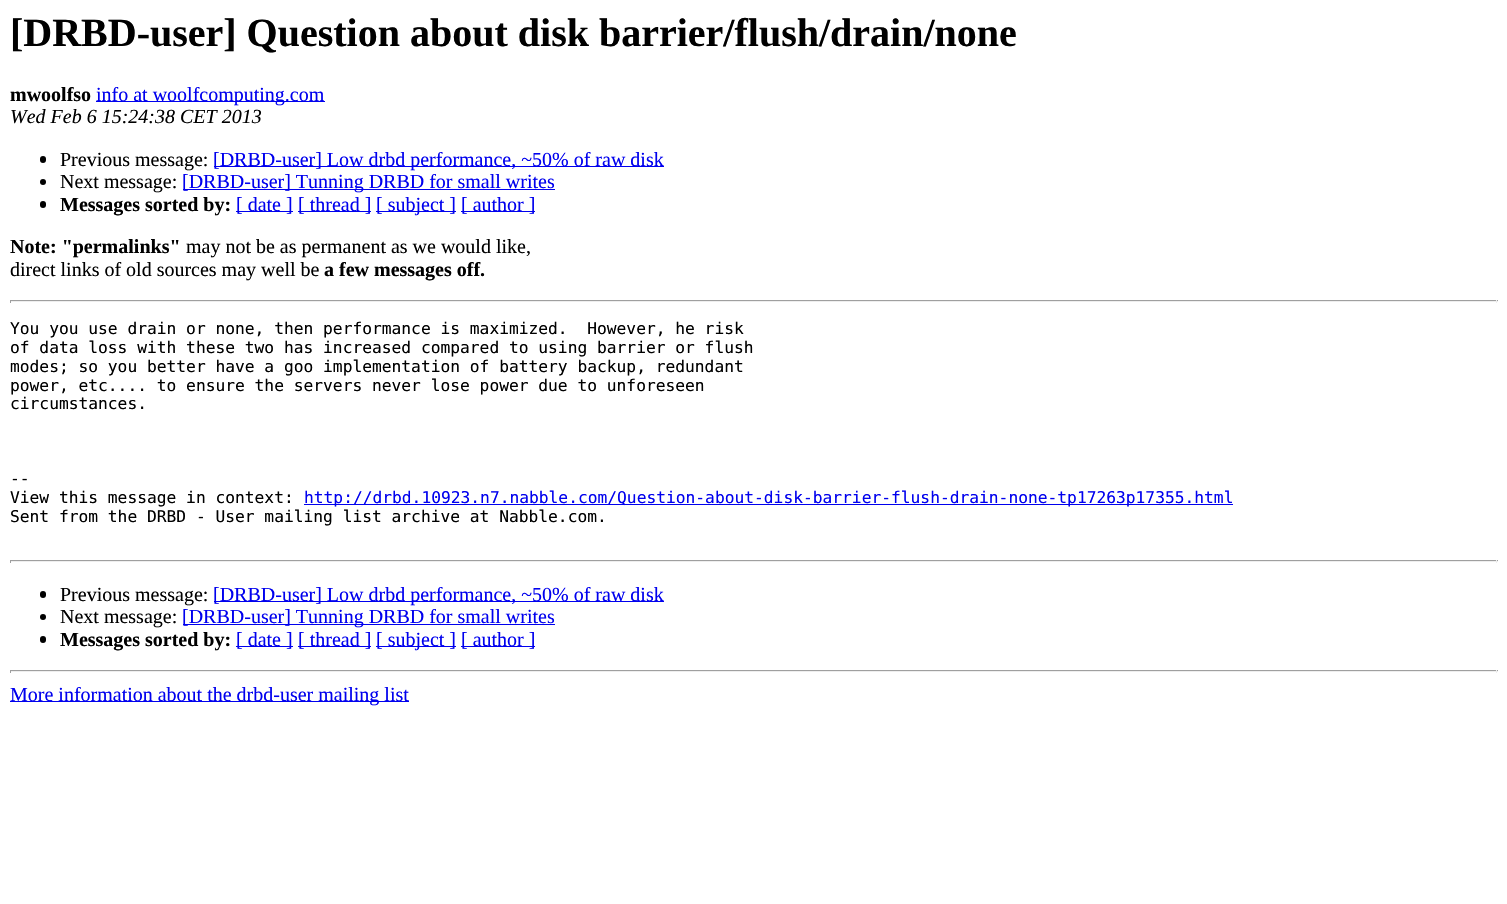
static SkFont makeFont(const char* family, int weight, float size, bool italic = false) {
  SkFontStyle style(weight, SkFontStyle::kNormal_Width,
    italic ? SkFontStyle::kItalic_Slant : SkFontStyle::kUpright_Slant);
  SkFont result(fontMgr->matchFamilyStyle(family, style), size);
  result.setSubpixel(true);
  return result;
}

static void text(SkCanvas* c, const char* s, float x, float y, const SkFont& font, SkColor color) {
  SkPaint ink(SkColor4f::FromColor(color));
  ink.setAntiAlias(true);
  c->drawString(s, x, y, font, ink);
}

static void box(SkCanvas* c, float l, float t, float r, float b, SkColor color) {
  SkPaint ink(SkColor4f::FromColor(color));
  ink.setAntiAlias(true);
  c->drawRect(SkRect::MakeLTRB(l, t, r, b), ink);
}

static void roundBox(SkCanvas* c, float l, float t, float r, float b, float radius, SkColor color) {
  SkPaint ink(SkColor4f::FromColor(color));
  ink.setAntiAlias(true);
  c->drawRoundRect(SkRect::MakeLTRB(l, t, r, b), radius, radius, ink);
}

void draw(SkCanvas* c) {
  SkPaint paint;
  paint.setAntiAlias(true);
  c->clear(0xffffffff);
  SkFont face1 = makeFont("Liberation Serif", 700, 40);
  text(c, "[DRBD-user] Question about disk barrier/flush/drain/none", 10, 46, face1, 0xff000000);
  SkFont face2 = makeFont("Liberation Serif", 700, 20);
  text(c, "mwoolfso", 10, 101, face2, 0xff000000);
  box(c, 96, 101, 325, 102, 0xff0000ee);
  SkFont face3 = makeFont("Liberation Serif", 400, 20);
  text(c, "info at woolfcomputing.com", 96, 101, face3, 0xff0000ee);
  SkFont face4 = makeFont("Liberation Serif", 400, 20, true);
  text(c, "Wed Feb 6 15:24:38 CET 2013", 10, 123, face4, 0xff000000);
  roundBox(c, 40, 156, 46, 163, 3, 0xff000000);
  text(c, "Previous message:", 60, 166, face3, 0xff000000);
  box(c, 214, 166, 664, 167, 0xff0000ee);
  text(c, "[DRBD-user] Low drbd performance, ~50% of raw disk", 213, 166, face3, 0xff0000ee);
  paint.setColor(0xff000000);
  c->drawCircle(43, 182, 3, paint);
  text(c, "Next message:", 60, 188, face3, 0xff000000);
  box(c, 183, 189, 555, 190, 0xff0000ee);
  text(c, "[DRBD-user] Tunning DRBD for small writes", 182, 188, face3, 0xff0000ee);
  roundBox(c, 40, 201, 46, 208, 3, 0xff000000);
  text(c, "Messages sorted by:", 60, 211, face2, 0xff000000);
  box(c, 236, 211, 293, 212, 0xff0000ee);
  text(c, "[ date ]", 236, 211, face3, 0xff0000ee);
  box(c, 298, 211, 371, 212, 0xff0000ee);
  text(c, "[ thread ]", 298, 211, face3, 0xff0000ee);
  box(c, 376, 211, 456, 212, 0xff0000ee);
  text(c, "[ subject ]", 376, 211, face3, 0xff0000ee);
  box(c, 461, 211, 535, 212, 0xff0000ee);
  text(c, "[ author ]", 461, 211, face3, 0xff0000ee);
  text(c, "Note: \"permalinks\"", 10, 253, face2, 0xff000000);
  text(c, "may not be as permanent as we would like,", 186, 253, face3, 0xff000000);
  text(c, "direct links of old sources may well be", 10, 276, face3, 0xff000000);
  text(c, "a few messages off.", 324, 276, face2, 0xff000000);
  box(c, 10, 300, 1498, 301, 0xff9f9f9f);
  box(c, 1496, 300, 1497, 303, 0xffeeeeee);
  box(c, 10, 301, 1498, 302, 0xffeeeeee);
  box(c, 10, 300, 11, 303, 0xff9f9f9f);
  SkFont face5 = makeFont("DejaVu Sans Mono", 400, 16.25f);
  text(c, "You you use drain or none, then performance is maximized.  However, he risk", 10, 334, face5, 0xff000000);
  text(c, "of data loss with these two has increased compared to using barrier or flush", 10, 353, face5, 0xff000000);
  text(c, "modes; so you better have a goo implementation of battery backup, redundant", 10, 372, face5, 0xff000000);
  text(c, "power, etc.... to ensure the servers never lose power due to unforeseen", 10, 391, face5, 0xff000000);
  text(c, "circumstances.", 10, 409, face5, 0xff000000);
  text(c, "--", 10, 484, face5, 0xff000000);
  text(c, "View this message in context:", 10, 503, face5, 0xff000000);
  box(c, 304, 504, 1233, 505, 0xff0000ee);
  text(c, "http://drbd.10923.n7.nabble.com/Question-about-disk-barrier-flush-drain-none-tp17263p17355.html", 304, 503, face5, 0xff0000ee);
  text(c, "Sent from the DRBD - User mailing list archive at Nabble.com.", 10, 522, face5, 0xff000000);
  box(c, 10, 560, 1498, 561, 0xff9f9f9f);
  box(c, 1496, 560, 1497, 563, 0xffeeeeee);
  box(c, 10, 561, 1498, 562, 0xffeeeeee);
  box(c, 10, 560, 11, 563, 0xff9f9f9f);
  roundBox(c, 40, 591, 46, 598, 3, 0xff000000);
  text(c, "Previous message:", 60, 601, face3, 0xff000000);
  box(c, 214, 601, 664, 602, 0xff0000ee);
  text(c, "[DRBD-user] Low drbd performance, ~50% of raw disk", 213, 601, face3, 0xff0000ee);
  c->drawCircle(43, 617, 3, paint);
  text(c, "Next message:", 60, 623, face3, 0xff000000);
  box(c, 183, 624, 555, 625, 0xff0000ee);
  text(c, "[DRBD-user] Tunning DRBD for small writes", 182, 623, face3, 0xff0000ee);
  roundBox(c, 40, 636, 46, 643, 3, 0xff000000);
  text(c, "Messages sorted by:", 60, 646, face2, 0xff000000);
  box(c, 236, 646, 293, 647, 0xff0000ee);
  text(c, "[ date ]", 236, 646, face3, 0xff0000ee);
  box(c, 298, 646, 371, 647, 0xff0000ee);
  text(c, "[ thread ]", 298, 646, face3, 0xff0000ee);
  box(c, 376, 646, 456, 647, 0xff0000ee);
  text(c, "[ subject ]", 376, 646, face3, 0xff0000ee);
  box(c, 461, 646, 535, 647, 0xff0000ee);
  text(c, "[ author ]", 461, 646, face3, 0xff0000ee);
  box(c, 10, 670, 1498, 671, 0xff9f9f9f);
  box(c, 1496, 670, 1497, 673, 0xffeeeeee);
  box(c, 10, 671, 1498, 672, 0xffeeeeee);
  box(c, 10, 670, 11, 673, 0xff9f9f9f);
  box(c, 10, 701, 409, 702, 0xff0000ee);
  text(c, "More information about the drbd-user mailing list", 10, 701, face3, 0xff0000ee);
}
